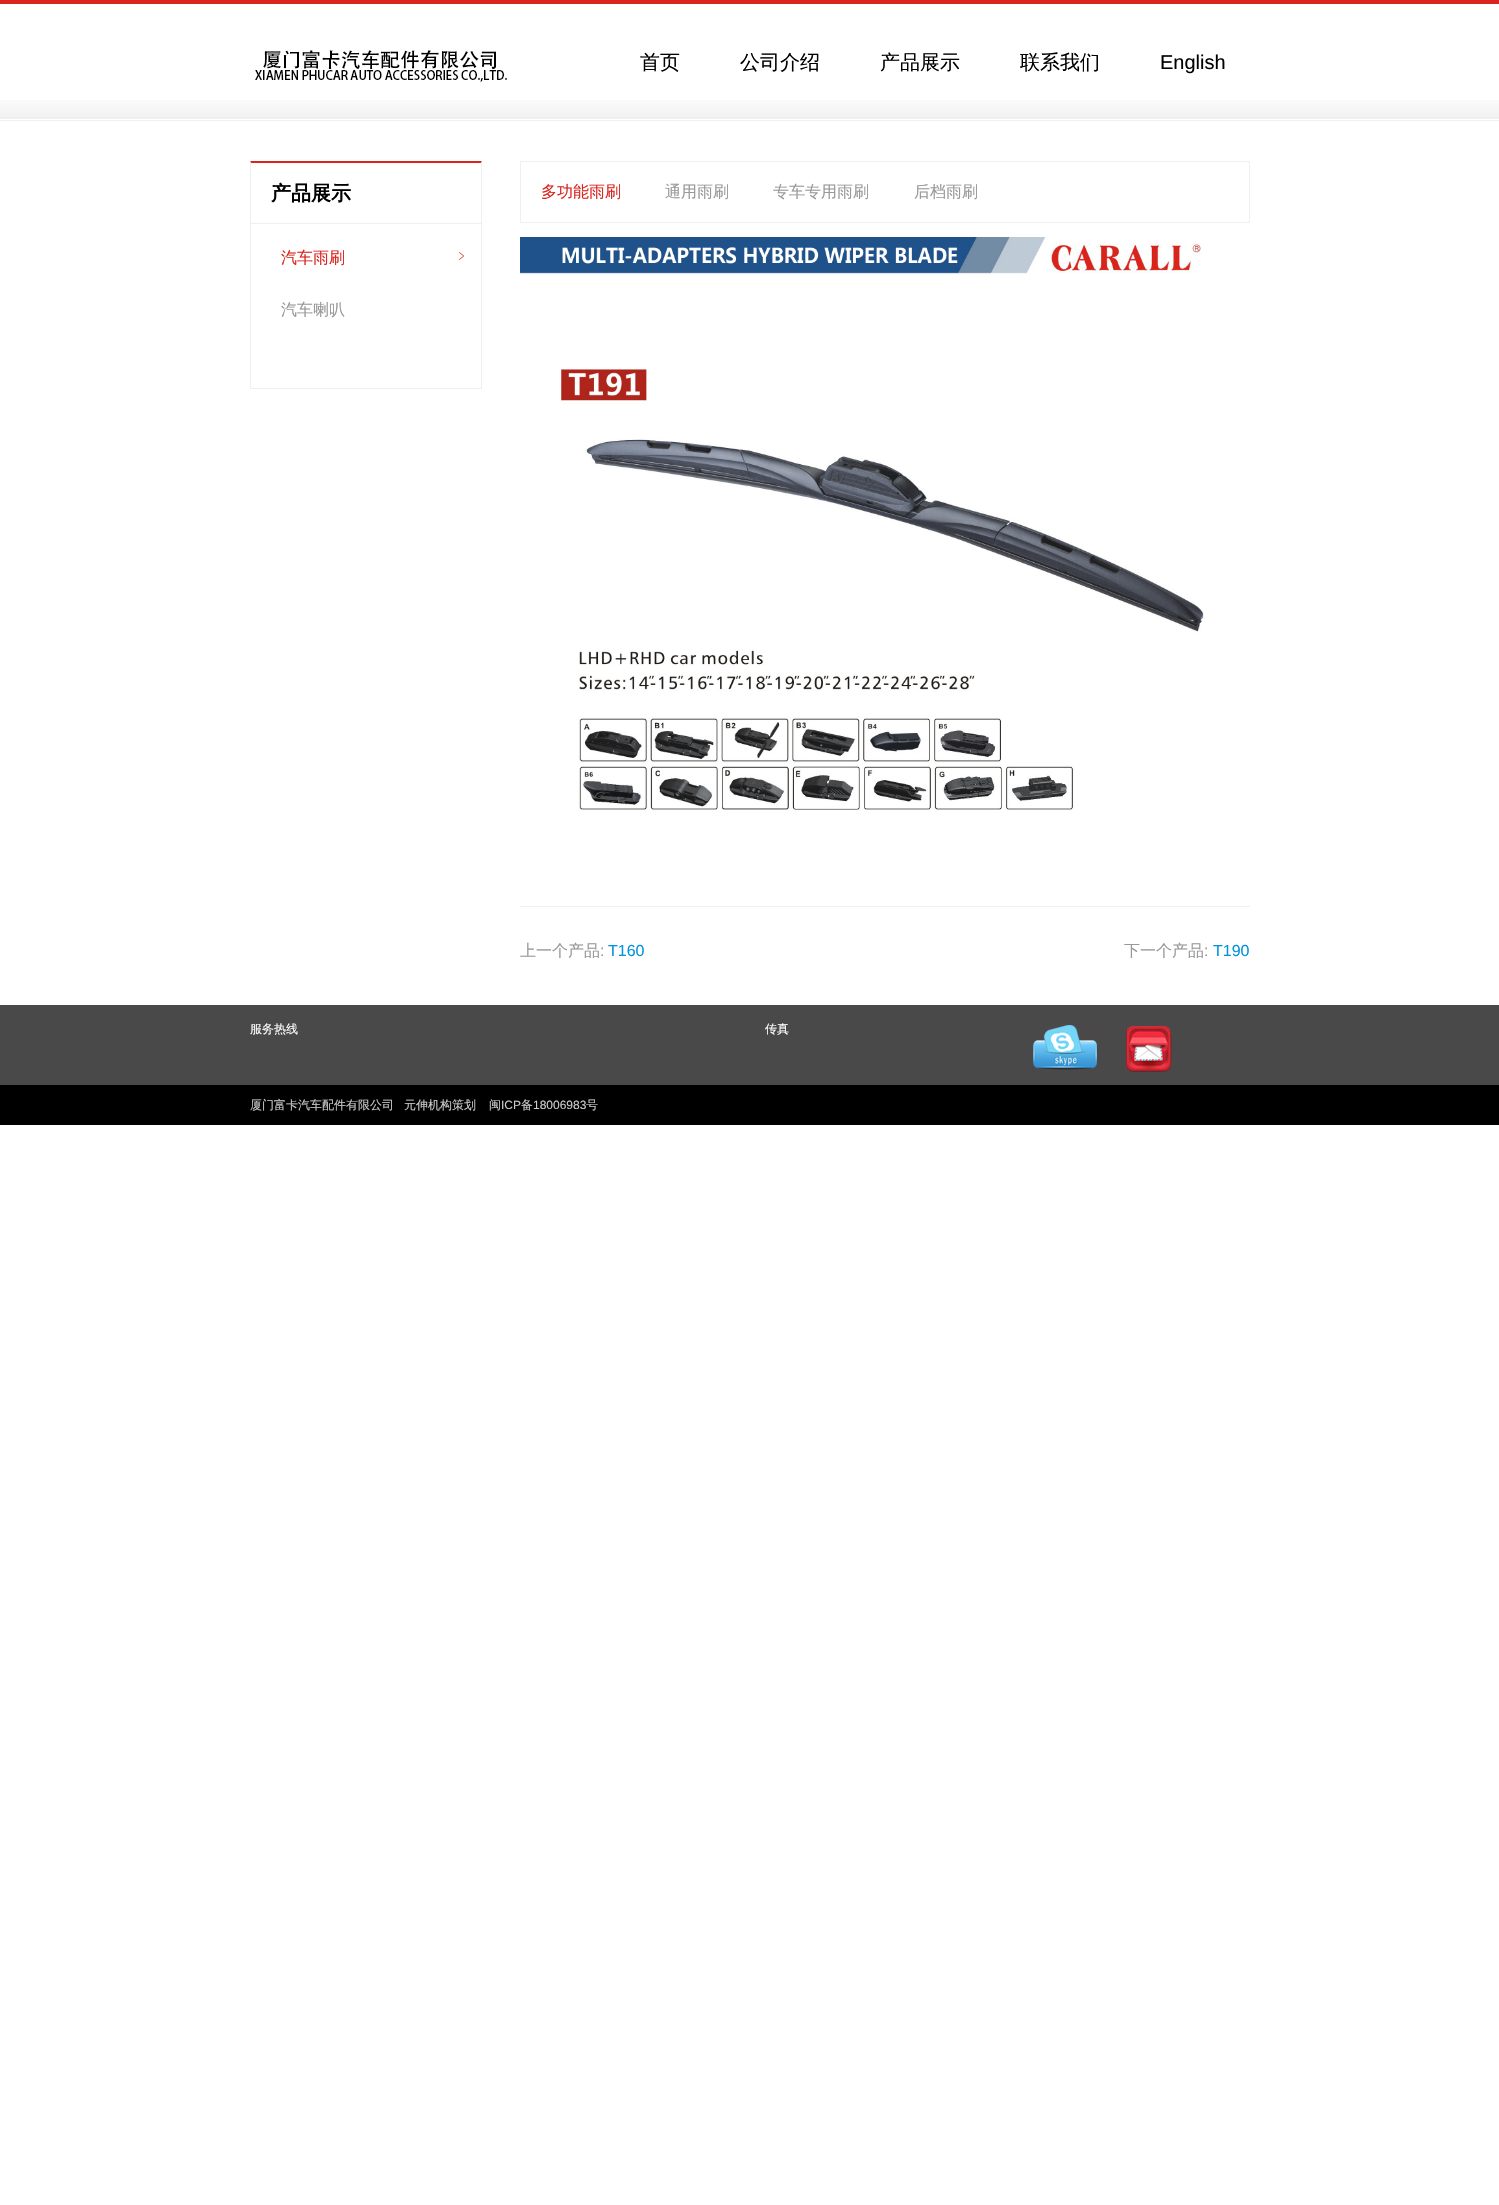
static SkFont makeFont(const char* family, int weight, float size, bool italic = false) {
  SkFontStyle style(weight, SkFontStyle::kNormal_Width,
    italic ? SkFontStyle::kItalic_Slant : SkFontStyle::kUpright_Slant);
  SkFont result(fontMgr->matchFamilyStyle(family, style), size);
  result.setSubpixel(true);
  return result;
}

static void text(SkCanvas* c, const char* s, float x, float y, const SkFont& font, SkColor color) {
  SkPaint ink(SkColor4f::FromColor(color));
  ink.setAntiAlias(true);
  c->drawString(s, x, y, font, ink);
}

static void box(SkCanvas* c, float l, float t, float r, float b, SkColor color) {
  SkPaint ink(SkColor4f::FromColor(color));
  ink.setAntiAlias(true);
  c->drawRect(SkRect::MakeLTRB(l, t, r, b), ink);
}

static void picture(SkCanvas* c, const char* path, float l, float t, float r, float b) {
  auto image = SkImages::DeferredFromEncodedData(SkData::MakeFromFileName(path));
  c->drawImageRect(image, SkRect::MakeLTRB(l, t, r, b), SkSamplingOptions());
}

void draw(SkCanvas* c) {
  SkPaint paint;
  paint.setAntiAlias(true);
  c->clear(0xffffffff);
  picture(c, "img_01.png", 0, 100, 1499, 119);
  box(c, 0, 0, 1499, 4, 0xffda251e);
  box(c, 0, 120, 1499, 121, 0xffefefef);
  picture(c, "img_02.png", 255, 50, 507, 82);
  SkFont face1 = makeFont("WenQuanYi Zen Hei", 500, 20);
  text(c, "首页", 640, 69, face1, 0xff000000);
  text(c, "公司介绍", 740, 69, face1, 0xff000000);
  text(c, "产品展示", 880, 69, face1, 0xff000000);
  text(c, "联系我们", 1020, 69, face1, 0xff000000);
  SkFont face2 = makeFont("Liberation Sans", 400, 20);
  text(c, "English", 1160, 69, face2, 0xff000000);
  paint.setColor(0xffda251e);
  c->drawPath(SkPathBuilder().moveTo(250, 161).lineTo(482, 161).lineTo(481, 163).lineTo(251, 163).close().detach(), paint);
  paint.setColor(0xffefefef);
  c->drawPath(SkPathBuilder().moveTo(482, 161).lineTo(482, 389).lineTo(481, 388).lineTo(481, 163).close().detach(), paint);
  box(c, 250, 388, 482, 389, 0xffefefef);
  c->drawPath(SkPathBuilder().moveTo(250, 389).lineTo(250, 161).lineTo(251, 163).lineTo(251, 388).close().detach(), paint);
  box(c, 251, 223, 481, 224, 0xffefefef);
  SkFont face3 = makeFont("WenQuanYi Zen Hei", 700, 20);
  text(c, "产品展示", 271, 200, face3, 0xff000000);
  picture(c, "img_03.png", 459, 252, 464, 260);
  SkFont face4 = makeFont("WenQuanYi Zen Hei", 500, 16);
  text(c, "汽车雨刷", 281, 263, face4, 0xffda251e);
  text(c, "汽车喇叭", 281, 315, face4, 0xff999999);
  paint.setStyle(SkPaint::kStroke_Style);
  paint.setStrokeWidth(1);
  c->drawRect(SkRect::MakeLTRB(520.5f, 161.5f, 1249.5f, 222.5f), paint);
  text(c, "多功能雨刷", 541, 197, face4, 0xffda251e);
  text(c, "通用雨刷", 665, 197, face4, 0xff999999);
  text(c, "专车专用雨刷", 773, 197, face4, 0xff999999);
  text(c, "后档雨刷", 914, 197, face4, 0xff999999);
  picture(c, "img_04.png", 520, 237, 1204, 810);
  box(c, 520, 906, 1250, 907, 0xffefefef);
  text(c, "上一个产品", 520, 956, face4, 0xff999999);
  SkFont face5 = makeFont("Liberation Sans", 400, 16);
  text(c, ":", 600, 956, face5, 0xff999999);
  text(c, "T160", 608, 956, face5, 0xff0193de);
  text(c, "下一个产品", 1124, 956, face4, 0xff999999);
  text(c, ":", 1204, 956, face5, 0xff999999);
  text(c, "T190", 1213, 956, face5, 0xff0193de);
  box(c, 0, 1005, 1499, 1085, 0xff4a4949);
  SkFont face6 = makeFont("WenQuanYi Zen Hei", 500, 12);
  text(c, "服务热线", 250, 1033, face6, 0xffffffff);
  text(c, "传真", 765, 1033, face6, 0xffffffff);
  picture(c, "img_05.png", 1033, 1022, 1097, 1070);
  picture(c, "img_06.png", 1124, 1026, 1172, 1072);
  box(c, 0, 1085, 1499, 1125, 0xff000000);
  text(c, "厦门富卡汽车配件有限公司", 250, 1109, face6, 0xffcdcbcb);
  text(c, "元伸机构策划", 404, 1109, face6, 0xffcdcbcb);
  text(c, "闽", 489, 1109, face6, 0xffcdcbcb);
  SkFont face7 = makeFont("Liberation Sans", 400, 12);
  text(c, "ICP", 501, 1109, face7, 0xffcdcbcb);
  text(c, "备", 521, 1109, face6, 0xffcdcbcb);
  text(c, "18006983", 533, 1109, face7, 0xffcdcbcb);
  text(c, "号", 586, 1109, face6, 0xffcdcbcb);
}
